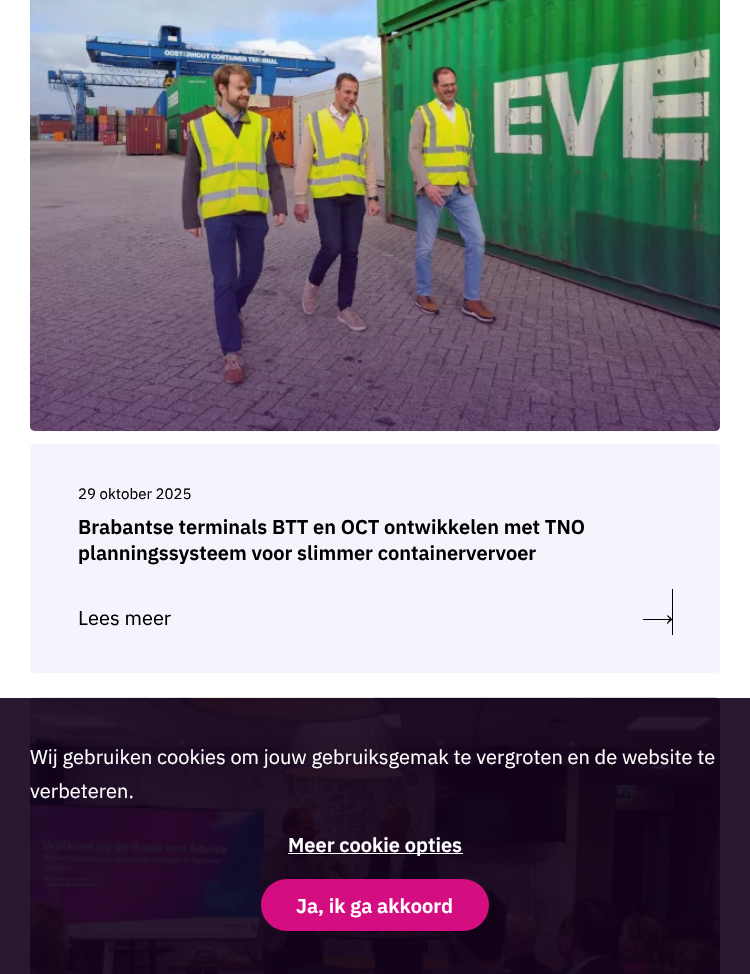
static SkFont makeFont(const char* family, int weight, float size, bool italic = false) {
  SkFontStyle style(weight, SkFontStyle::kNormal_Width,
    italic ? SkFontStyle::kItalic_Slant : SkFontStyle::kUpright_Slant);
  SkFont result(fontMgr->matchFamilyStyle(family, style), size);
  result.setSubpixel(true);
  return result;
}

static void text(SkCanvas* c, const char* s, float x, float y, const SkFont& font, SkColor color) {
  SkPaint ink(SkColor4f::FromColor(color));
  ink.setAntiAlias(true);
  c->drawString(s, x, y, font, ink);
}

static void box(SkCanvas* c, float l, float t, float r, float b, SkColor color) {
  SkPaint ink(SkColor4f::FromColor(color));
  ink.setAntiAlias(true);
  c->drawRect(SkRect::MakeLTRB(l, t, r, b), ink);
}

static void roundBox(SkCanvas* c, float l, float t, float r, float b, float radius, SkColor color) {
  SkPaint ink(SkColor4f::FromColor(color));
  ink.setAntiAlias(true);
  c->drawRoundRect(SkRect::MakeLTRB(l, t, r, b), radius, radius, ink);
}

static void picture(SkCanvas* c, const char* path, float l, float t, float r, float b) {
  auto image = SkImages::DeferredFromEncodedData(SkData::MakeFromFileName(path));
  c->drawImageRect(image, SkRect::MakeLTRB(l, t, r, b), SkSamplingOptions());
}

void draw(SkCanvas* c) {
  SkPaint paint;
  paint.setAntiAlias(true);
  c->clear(0xffffffff);
  box(c, 0, 698, 750, 974, 0xff291930);
  picture(c, "img_01.png", 30, 0, 720, 432);
  {
    const SkColor colors[] = {0x00340057, 0x80340057};
    const float stops[] = {0.26f, 1};
    const SkPoint ends[] = {{375, -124}, {375, 431}};
    paint.setShader(SkGradientShader::MakeLinear(ends, colors, stops, 2, SkTileMode::kClamp));
    paint.setAlpha(255);
  }
  c->drawRoundRect(SkRect::MakeLTRB(30, -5, 720, 431), 5, 5, paint);
  roundBox(c, 30, 444, 720, 673, 5, 0xfff6f3fd);
  SkFont face1 = makeFont("IBM Plex Sans", 400, 15);
  text(c, "29 oktober 2025", 78, 499, face1, 0xff000000);
  SkFont face2 = makeFont("IBM Plex Sans", 600, 20);
  text(c, "Brabantse terminals BTT en OCT ontwikkelen met TNO", 78, 534, face2, 0xff000000);
  text(c, "planningssysteem voor slimmer containervervoer", 78, 560, face2, 0xff000000);
  box(c, 672, 589, 673, 635, 0xff000000);
  SkFont face3 = makeFont("IBM Plex Sans", 400, 20);
  text(c, "Lees meer", 78, 625, face3, 0xff000000);
  c->save();
  c->clipRect(SkRect::MakeLTRB(643, 614, 673, 625));
  paint.setShader(nullptr);
  paint.setColor(0xff000000);
  c->drawPath(SkPathBuilder().moveTo(672, 620).cubicTo(673, 619, 666, 613, 667, 616).lineTo(670, 619).lineTo(667, 623).lineTo(667, 624).cubicTo(668, 624, 671, 620, 672, 620).close().moveTo(612, 620).lineTo(671, 620).lineTo(671, 619).lineTo(612, 619).close().detach(), paint);
  c->restore();
  picture(c, "img_02.png", 30, 697, 720, 974);
  {
    const SkColor colors[] = {0x0015001f, 0x8015001f};
    const float stops[] = {0.26f, 1};
    const SkPoint ends[] = {{375, 698}, {375, 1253}};
    paint.setShader(SkGradientShader::MakeLinear(ends, colors, stops, 2, SkTileMode::kClamp));
    paint.setAlpha(255);
  }
  c->drawRect(SkRect::MakeLTRB(70, 931, 591, 974), paint);
  text(c, "Wij gebruiken cookies om jouw gebruiksgemak te vergroten en de website te", 30, 764, face3, 0xffffffff);
  text(c, "verbeteren.", 30, 798, face3, 0xffffffff);
  box(c, 288, 853, 463, 854, 0xffffffff);
  text(c, "Meer cookie opties", 288, 852, face2, 0xffffffff);
  {
    const SkColor colors[] = {0xff5072bc, 0xff872181, 0xffb30c76, 0xffb30c76, 0xffd40e81, 0xffd40e81};
    const float stops[] = {0, 0.12f, 0.25f, 0.38f, 0.5f, 1};
    const SkPoint ends[] = {{34, 905}, {489, 905}};
    paint.setShader(SkGradientShader::MakeLinear(ends, colors, stops, 6, SkTileMode::kClamp));
    paint.setAlpha(255);
  }
  c->drawRoundRect(SkRect::MakeLTRB(261, 879, 489, 931), 26, 26, paint);
  text(c, "Ja, ik ga akkoord", 296, 913, face2, 0xffffffff);
}
